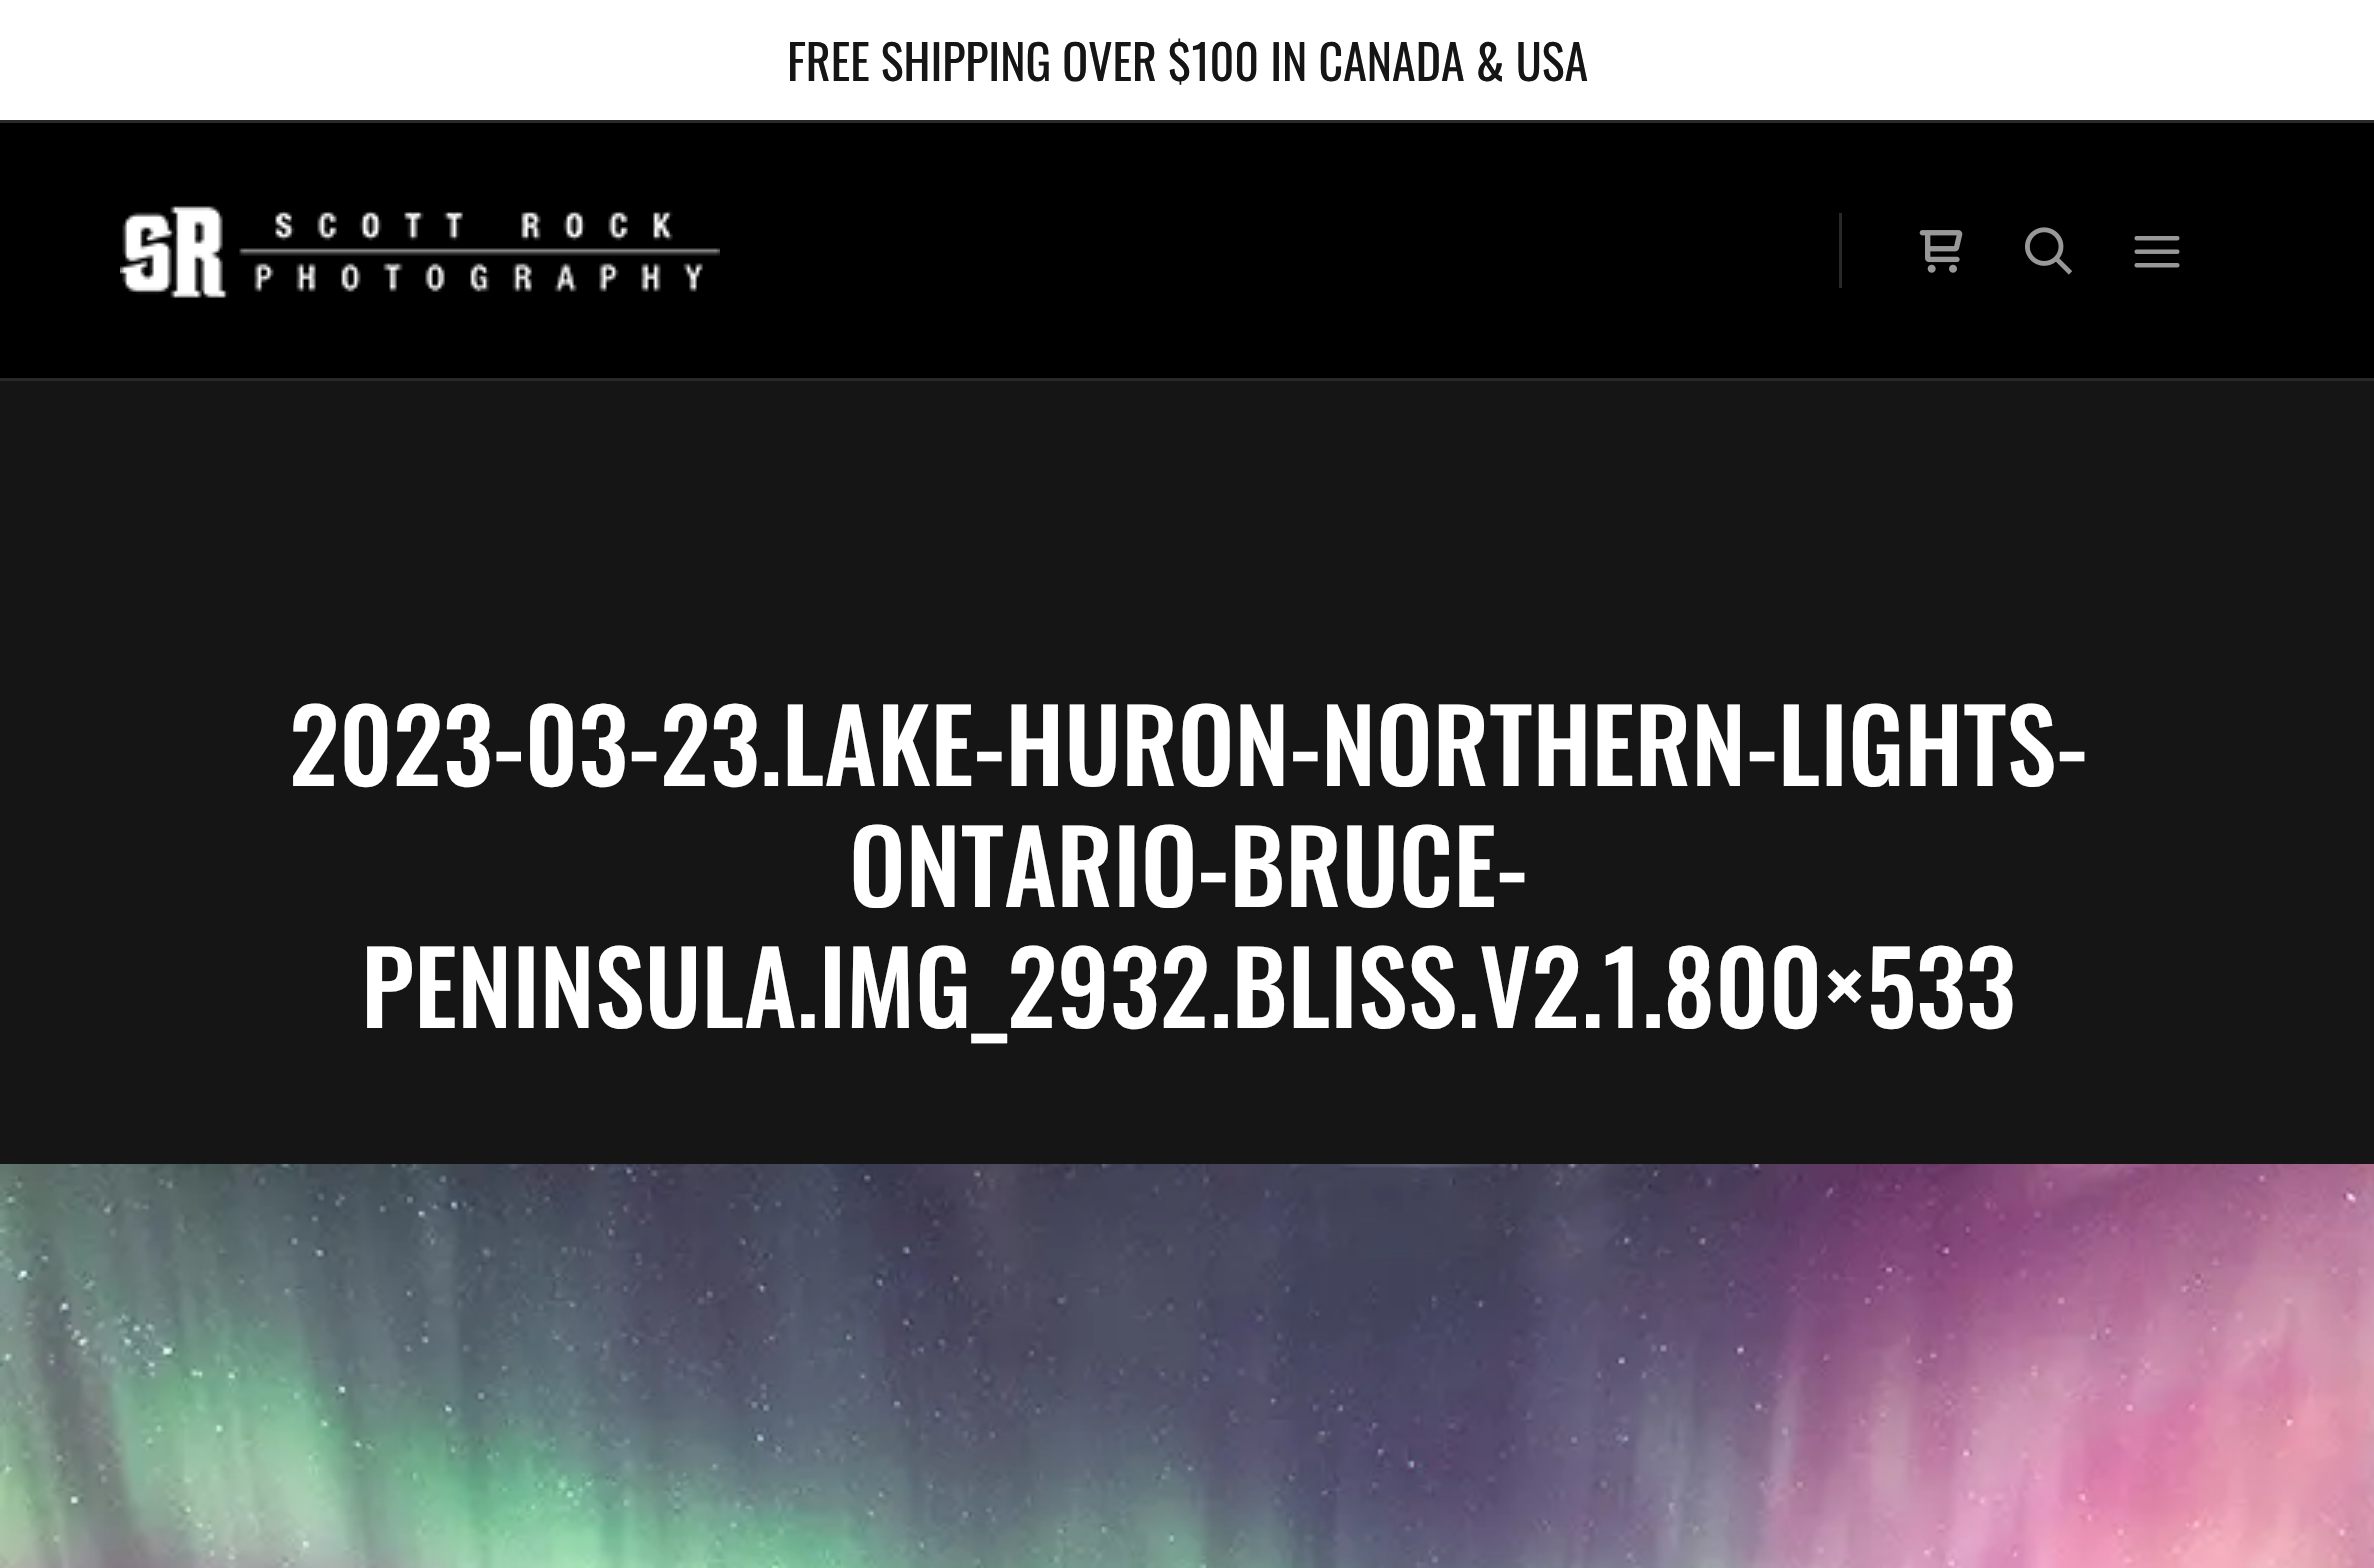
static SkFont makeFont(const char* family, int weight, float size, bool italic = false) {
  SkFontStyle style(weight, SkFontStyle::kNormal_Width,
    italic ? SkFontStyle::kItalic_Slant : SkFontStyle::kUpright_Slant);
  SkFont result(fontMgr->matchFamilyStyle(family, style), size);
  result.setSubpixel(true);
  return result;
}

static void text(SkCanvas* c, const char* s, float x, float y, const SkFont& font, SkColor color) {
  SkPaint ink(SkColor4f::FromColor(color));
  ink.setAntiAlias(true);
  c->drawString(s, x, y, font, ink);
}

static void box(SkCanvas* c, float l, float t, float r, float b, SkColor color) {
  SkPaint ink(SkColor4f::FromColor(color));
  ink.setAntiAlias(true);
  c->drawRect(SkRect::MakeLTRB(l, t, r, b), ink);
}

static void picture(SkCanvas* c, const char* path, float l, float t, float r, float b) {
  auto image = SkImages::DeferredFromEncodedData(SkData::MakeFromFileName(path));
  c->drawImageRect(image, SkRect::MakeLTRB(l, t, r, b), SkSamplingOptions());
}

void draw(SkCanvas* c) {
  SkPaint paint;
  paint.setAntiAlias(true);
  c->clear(0xff151515);
  box(c, 0, 123, 2374, 378, 0xff000000);
  box(c, 0, 378, 2374, 381, 0xff292929);
  box(c, 0, 0, 2374, 120, 0xffffffff);
  box(c, 0, 120, 2374, 123, 0xff292929);
  SkFont face1 = makeFont("Oswald", 400, 48);
  text(c, "FREE SHIPPING OVER $100 IN CANADA & USA", 787, 81, face1, 0xff151515);
  picture(c, "img_01.png", 120, 206, 720, 298);
  box(c, 1839, 213, 1842, 288, 0xff292929);
  picture(c, "img_02.png", 1919, 230, 1963, 273);
  picture(c, "img_03.png", 2025, 227, 2073, 275);
  picture(c, "img_04.png", 2134, 236, 2180, 268);
  SkFont face2 = makeFont("Oswald", 500, 100.75f);
  text(c, "2023-03-23.LAKE-HURON-NORTHERN-LIGHTS-", 289, 786, face2, 0xffffffff);
  text(c, "ONTARIO-BRUCE-", 849, 907, face2, 0xffffffff);
  text(c, "PENINSULA.IMG_2932.BLISS.V2.1.800×533", 361, 1028, face2, 0xffffffff);
  picture(c, "img_05.png", 0, 1164, 2374, 1568);
}
